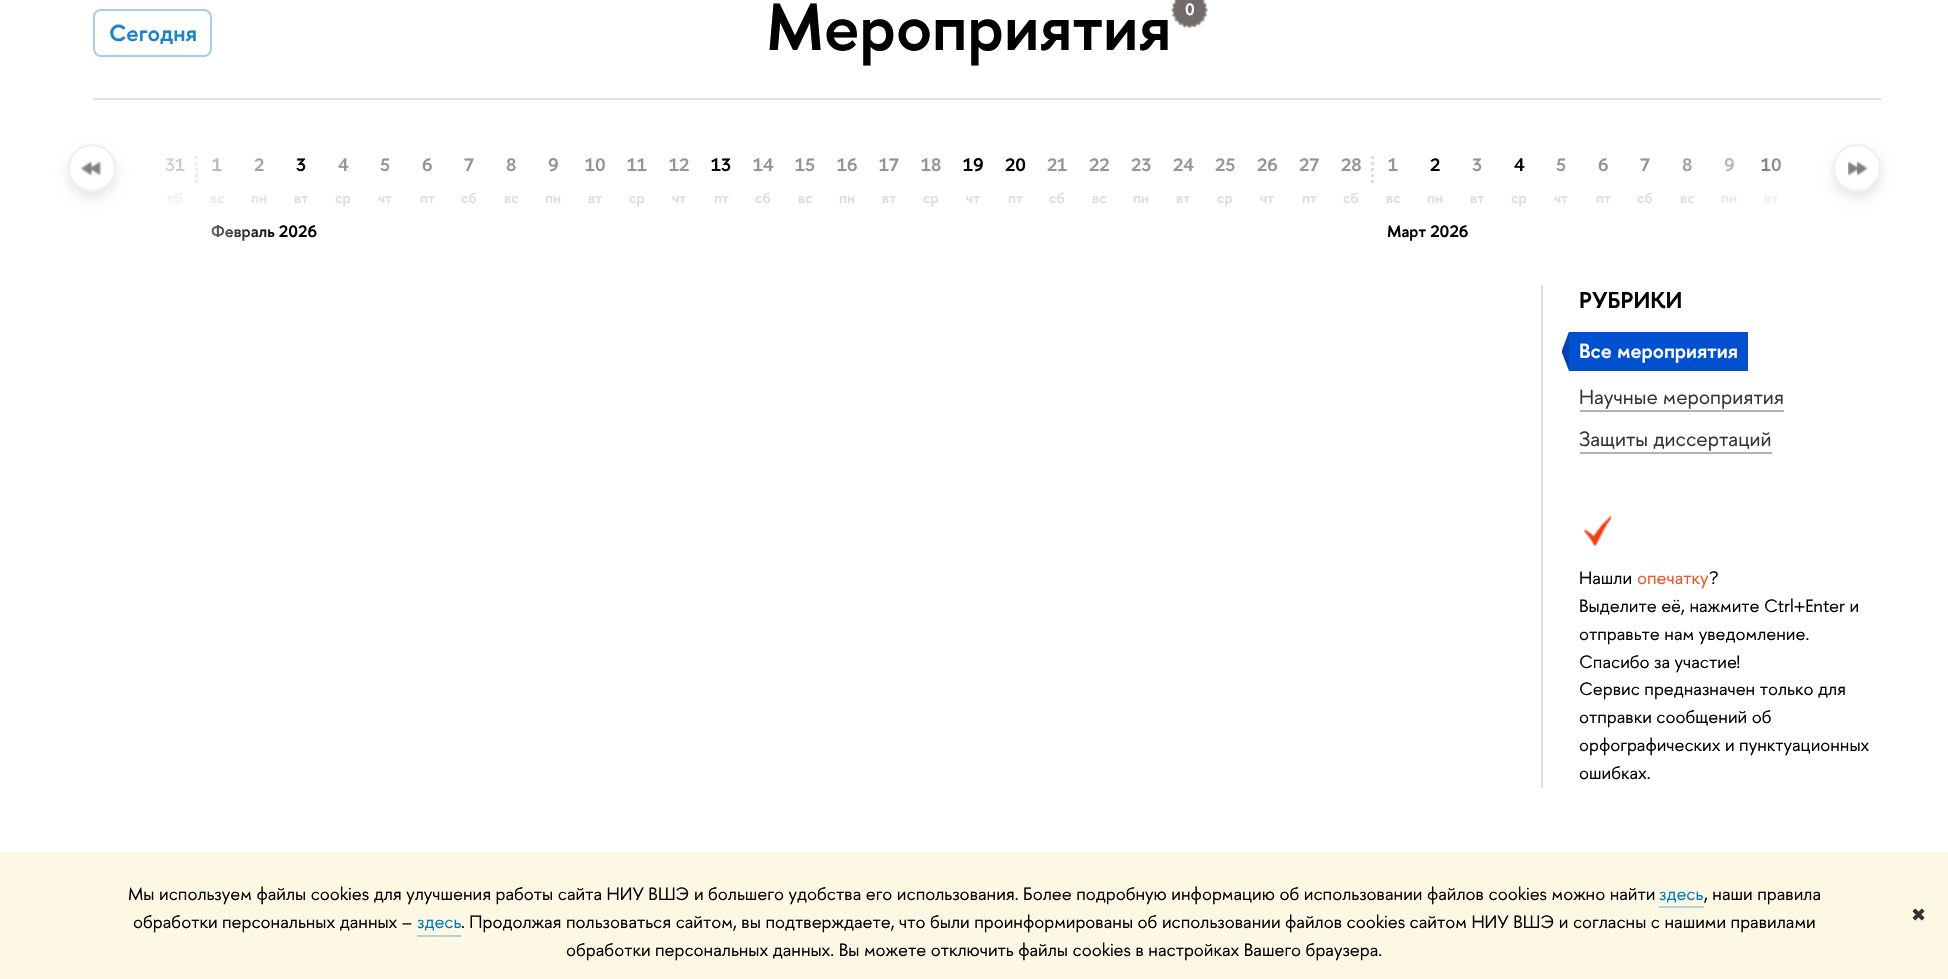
static SkFont makeFont(const char* family, int weight, float size, bool italic = false) {
  SkFontStyle style(weight, SkFontStyle::kNormal_Width,
    italic ? SkFontStyle::kItalic_Slant : SkFontStyle::kUpright_Slant);
  SkFont result(fontMgr->matchFamilyStyle(family, style), size);
  result.setSubpixel(true);
  return result;
}

static void text(SkCanvas* c, const char* s, float x, float y, const SkFont& font, SkColor color) {
  SkPaint ink(SkColor4f::FromColor(color));
  ink.setAntiAlias(true);
  c->drawString(s, x, y, font, ink);
}

static void box(SkCanvas* c, float l, float t, float r, float b, SkColor color) {
  SkPaint ink(SkColor4f::FromColor(color));
  ink.setAntiAlias(true);
  c->drawRect(SkRect::MakeLTRB(l, t, r, b), ink);
}

static void picture(SkCanvas* c, const char* path, float l, float t, float r, float b) {
  auto image = SkImages::DeferredFromEncodedData(SkData::MakeFromFileName(path));
  c->drawImageRect(image, SkRect::MakeLTRB(l, t, r, b), SkSamplingOptions());
}

void draw(SkCanvas* c) {
  SkPaint paint;
  paint.setAntiAlias(true);
  c->clear(0xffffffff);
  paint.setStyle(SkPaint::kStroke_Style);
  paint.setStrokeWidth(2);
  paint.setColor(0xffa5cde9);
  c->drawRoundRect(SkRect::MakeLTRB(94, 10, 211, 56), 7, 7, paint);
  SkFont face1 = makeFont("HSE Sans", 600, 23);
  text(c, "Сегодня", 109, 41, face1, 0xff1d83c8);
  SkFont face2 = makeFont("HSE Sans", 600, 66.25f);
  text(c, "Мероприятия", 766, 50, face2, 0xff000000);
  picture(c, "img_01.png", 1171, 0, 1208, 28);
  SkFont face3 = makeFont("HSE Sans", 600, 16.5f);
  text(c, "0", 1185, 15, face3, 0xffffffff);
  box(c, 93, 98, 1881, 100, 0xffe0e2e2);
  paint.setStyle(SkPaint::kFill_Style);
  paint.setColor(0x1a000000);
  paint.setMaskFilter(SkMaskFilter::MakeBlur(kNormal_SkBlurStyle, 6));
  c->drawRoundRect(SkRect::MakeLTRB(68, 150, 116, 198), 24, 24, paint);
  paint.setMaskFilter(nullptr);
  paint.setColor(0xffffffff);
  c->drawCircle(92, 168, 24, paint);
  picture(c, "img_02.png", 80, 161, 102, 176);
  paint.setStyle(SkPaint::kStroke_Style);
  paint.setColor(0xffedeff3);
  c->drawCircle(92, 168, 23, paint);
  SkFont face4 = makeFont("HSE Sans", 600, 18);
  text(c, "31", 165, 171, face4, 0xff959595);
  SkFont face5 = makeFont("HSE Sans", 600, 15);
  text(c, "сб", 167, 203, face5, 0xffdddddd);
  paint.setStrokeWidth(3);
  paint.setColor(0xffdddddd);
  paint.setPathEffect(SkDashPathEffect::Make({{3, 3}}, 0));
  c->drawPath(SkPathBuilder().moveTo(196.5f, 156).lineTo(196.5f, 186).detach(), paint);
  paint.setPathEffect(nullptr);
  text(c, "1", 212, 171, face4, 0xff959595);
  text(c, "вс", 210, 203, face5, 0xffdddddd);
  text(c, "2", 254, 171, face4, 0xff959595);
  text(c, "пн", 251, 203, face5, 0xffdddddd);
  text(c, "Февраль 2026", 211, 237, face3, 0xff000000);
  paint.setStyle(SkPaint::kFill_Style);
  {
    const SkColor colors[] = {0xffffffff, 0x00ffffff};
    const float stops[] = {0.3f, 1};
    const SkPoint ends[] = {{0, 185}, {285, 185}};
    paint.setShader(SkGradientShader::MakeLinear(ends, colors, stops, 2, SkTileMode::kClamp));
    paint.setAlpha(255);
  }
  c->drawRect(SkRect::MakeLTRB(165, 156, 281, 241), paint);
  paint.setShader(nullptr);
  paint.setColor(0x1a000000);
  paint.setMaskFilter(SkMaskFilter::MakeBlur(kNormal_SkBlurStyle, 6));
  c->drawRoundRect(SkRect::MakeLTRB(1833, 150, 1881, 198), 24, 24, paint);
  paint.setMaskFilter(nullptr);
  paint.setColor(0xffffffff);
  c->drawCircle(1857, 168, 24, paint);
  picture(c, "img_03.png", 1848, 161, 1868, 176);
  paint.setStyle(SkPaint::kStroke_Style);
  paint.setStrokeWidth(2);
  paint.setColor(0xffedeff3);
  c->drawCircle(1857, 168, 23, paint);
  text(c, "3", 296, 171, face4, 0xff000000);
  text(c, "вт", 294, 203, face5, 0xffdddddd);
  text(c, "4", 338, 171, face4, 0xff959595);
  text(c, "ср", 335, 203, face5, 0xffdddddd);
  text(c, "5", 380, 171, face4, 0xff959595);
  text(c, "чт", 378, 203, face5, 0xffdddddd);
  text(c, "6", 422, 171, face4, 0xff959595);
  text(c, "пт", 420, 203, face5, 0xffdddddd);
  text(c, "7", 464, 171, face4, 0xff959595);
  text(c, "сб", 461, 203, face5, 0xffdddddd);
  text(c, "8", 506, 171, face4, 0xff959595);
  text(c, "вс", 504, 203, face5, 0xffdddddd);
  text(c, "9", 548, 171, face4, 0xff959595);
  text(c, "пн", 545, 203, face5, 0xffdddddd);
  text(c, "10", 585, 171, face4, 0xff959595);
  text(c, "вт", 588, 203, face5, 0xffdddddd);
  text(c, "11", 627, 171, face4, 0xff959595);
  text(c, "ср", 629, 203, face5, 0xffdddddd);
  text(c, "12", 669, 171, face4, 0xff959595);
  text(c, "чт", 672, 203, face5, 0xffdddddd);
  text(c, "13", 711, 171, face4, 0xff000000);
  text(c, "пт", 714, 203, face5, 0xffdddddd);
  text(c, "14", 753, 171, face4, 0xff959595);
  text(c, "сб", 755, 203, face5, 0xffdddddd);
  text(c, "15", 795, 171, face4, 0xff959595);
  text(c, "вс", 798, 203, face5, 0xffdddddd);
  text(c, "16", 837, 171, face4, 0xff959595);
  text(c, "пн", 839, 203, face5, 0xffdddddd);
  text(c, "17", 879, 171, face4, 0xff959595);
  text(c, "вт", 882, 203, face5, 0xffdddddd);
  text(c, "18", 921, 171, face4, 0xff959595);
  text(c, "ср", 923, 203, face5, 0xffdddddd);
  text(c, "19", 963, 171, face4, 0xff000000);
  text(c, "чт", 966, 203, face5, 0xffdddddd);
  text(c, "20", 1005, 171, face4, 0xff000000);
  text(c, "пт", 1008, 203, face5, 0xffdddddd);
  text(c, "21", 1047, 171, face4, 0xff959595);
  text(c, "сб", 1049, 203, face5, 0xffdddddd);
  text(c, "22", 1089, 171, face4, 0xff959595);
  text(c, "вс", 1092, 203, face5, 0xffdddddd);
  text(c, "23", 1131, 171, face4, 0xff959595);
  text(c, "пн", 1133, 203, face5, 0xffdddddd);
  text(c, "24", 1173, 171, face4, 0xff959595);
  text(c, "вт", 1176, 203, face5, 0xffdddddd);
  text(c, "25", 1215, 171, face4, 0xff959595);
  text(c, "ср", 1217, 203, face5, 0xffdddddd);
  text(c, "26", 1257, 171, face4, 0xff959595);
  text(c, "чт", 1260, 203, face5, 0xffdddddd);
  text(c, "27", 1299, 171, face4, 0xff959595);
  text(c, "пт", 1302, 203, face5, 0xffdddddd);
  text(c, "28", 1341, 171, face4, 0xff959595);
  text(c, "сб", 1343, 203, face5, 0xffdddddd);
  paint.setStrokeWidth(3);
  paint.setColor(0xffdddddd);
  paint.setPathEffect(SkDashPathEffect::Make({{3, 3}}, 0));
  c->drawPath(SkPathBuilder().moveTo(1372.5f, 156).lineTo(1372.5f, 186).detach(), paint);
  paint.setPathEffect(nullptr);
  text(c, "1", 1388, 171, face4, 0xff959595);
  text(c, "вс", 1386, 203, face5, 0xffdddddd);
  text(c, "2", 1430, 171, face4, 0xff000000);
  text(c, "пн", 1427, 203, face5, 0xffdddddd);
  text(c, "3", 1472, 171, face4, 0xff959595);
  text(c, "вт", 1470, 203, face5, 0xffdddddd);
  text(c, "4", 1514, 171, face4, 0xff000000);
  text(c, "ср", 1511, 203, face5, 0xffdddddd);
  text(c, "5", 1556, 171, face4, 0xff959595);
  text(c, "чт", 1554, 203, face5, 0xffdddddd);
  text(c, "6", 1598, 171, face4, 0xff959595);
  text(c, "пт", 1596, 203, face5, 0xffdddddd);
  text(c, "7", 1640, 171, face4, 0xff959595);
  text(c, "сб", 1637, 203, face5, 0xffdddddd);
  text(c, "8", 1682, 171, face4, 0xff959595);
  text(c, "вс", 1680, 203, face5, 0xffdddddd);
  text(c, "9", 1724, 171, face4, 0xff959595);
  text(c, "пн", 1721, 203, face5, 0xffdddddd);
  text(c, "10", 1761, 171, face4, 0xff000000);
  text(c, "вт", 1764, 203, face5, 0xffdddddd);
  text(c, "Март 2026", 1387, 237, face3, 0xff000000);
  paint.setStyle(SkPaint::kFill_Style);
  {
    const SkColor colors[] = {0x00ffffff, 0xffffffff};
    const float stops[] = {0, 0.7f};
    const SkPoint ends[] = {{1664, 185}, {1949, 185}};
    paint.setShader(SkGradientShader::MakeLinear(ends, colors, stops, 2, SkTileMode::kClamp));
    paint.setAlpha(255);
  }
  c->drawRect(SkRect::MakeLTRB(1681, 158, 1781, 203), paint);
  box(c, 1541, 285, 1543, 788, 0xffe0e2e2);
  text(c, "РУБРИКИ", 1579, 308, face1, 0xff000000);
  box(c, 1569, 332, 1748, 371, 0xff0050cf);
  c->save();
  c->clipRect(SkRect::MakeLTRB(1562, 332, 1569, 371));
  paint.setShader(nullptr);
  paint.setColor(0xff0941af);
  c->drawPath(SkPathBuilder().moveTo(1569, 331.5f).lineTo(1561.5f, 351.5f).lineTo(1569, 371).close().detach(), paint);
  c->restore();
  SkFont face6 = makeFont("HSE Sans", 600, 20.5f);
  text(c, "Все мероприятия", 1579, 358, face6, 0xffffffff);
  SkFont face7 = makeFont("HSE Sans", 400, 20.5f);
  text(c, "Научные мероприятия", 1579, 404, face7, 0xff333333);
  box(c, 1580, 410, 1784, 412, 0xffb3b3b3);
  text(c, "Защиты диссертаций", 1579, 446, face7, 0xff333333);
  box(c, 1580, 452, 1772, 454, 0xffb3b3b3);
  picture(c, "img_04.png", 1583, 515, 1612, 546);
  SkFont face8 = makeFont("HSE Sans", 400, 18);
  text(c, "Нашли", 1579, 584, face8, 0xff000000);
  text(c, "опечатку", 1637, 584, face8, 0xfff35023);
  text(c, "?", 1709, 584, face8, 0xff000000);
  text(c, "Выделите её, нажмите Ctrl+Enter и", 1579, 612, face8, 0xff000000);
  text(c, "отправьте нам уведомление.", 1579, 640, face8, 0xff000000);
  text(c, "Спасибо за участие!", 1579, 668, face8, 0xff000000);
  text(c, "Сервис предназначен только для", 1579, 695, face8, 0xff000000);
  text(c, "отправки сообщений об", 1579, 723, face8, 0xff000000);
  text(c, "орфографических и пунктуационных", 1579, 751, face8, 0xff000000);
  text(c, "ошибках.", 1579, 779, face8, 0xff000000);
  box(c, 0, 852, 1948, 979, 0xfffcf8e3);
  text(c, "Мы используем файлы cookies для улучшения работы сайта НИУ ВШЭ и большего удобства его использования. Более подробную информацию об использовании файлов cookies можно найти", 128, 900, face8, 0xff000000);
  text(c, "здесь", 1659, 900, face8, 0xff007ac5);
  box(c, 1659, 906, 1704, 908, 0xffb0d2da);
  text(c, ", наши правила", 1704, 900, face8, 0xff000000);
  text(c, "обработки персональных данных –", 133, 928, face8, 0xff000000);
  text(c, "здесь", 417, 928, face8, 0xff007ac5);
  box(c, 417, 935, 461, 937, 0xffb0d2da);
  text(c, ". Продолжая пользоваться сайтом, вы подтверждаете, что были проинформированы об использовании файлов cookies сайтом НИУ ВШЭ и согласны с нашими правилами", 461, 928, face8, 0xff000000);
  text(c, "обработки персональных данных. Вы можете отключить файлы cookies в настройках Вашего браузера.", 566, 956, face8, 0xff000000);
  SkFont face9 = makeFont("DejaVu Sans", 400, 18);
  text(c, "✖", 1911, 921, face9, 0xff333333);
}
